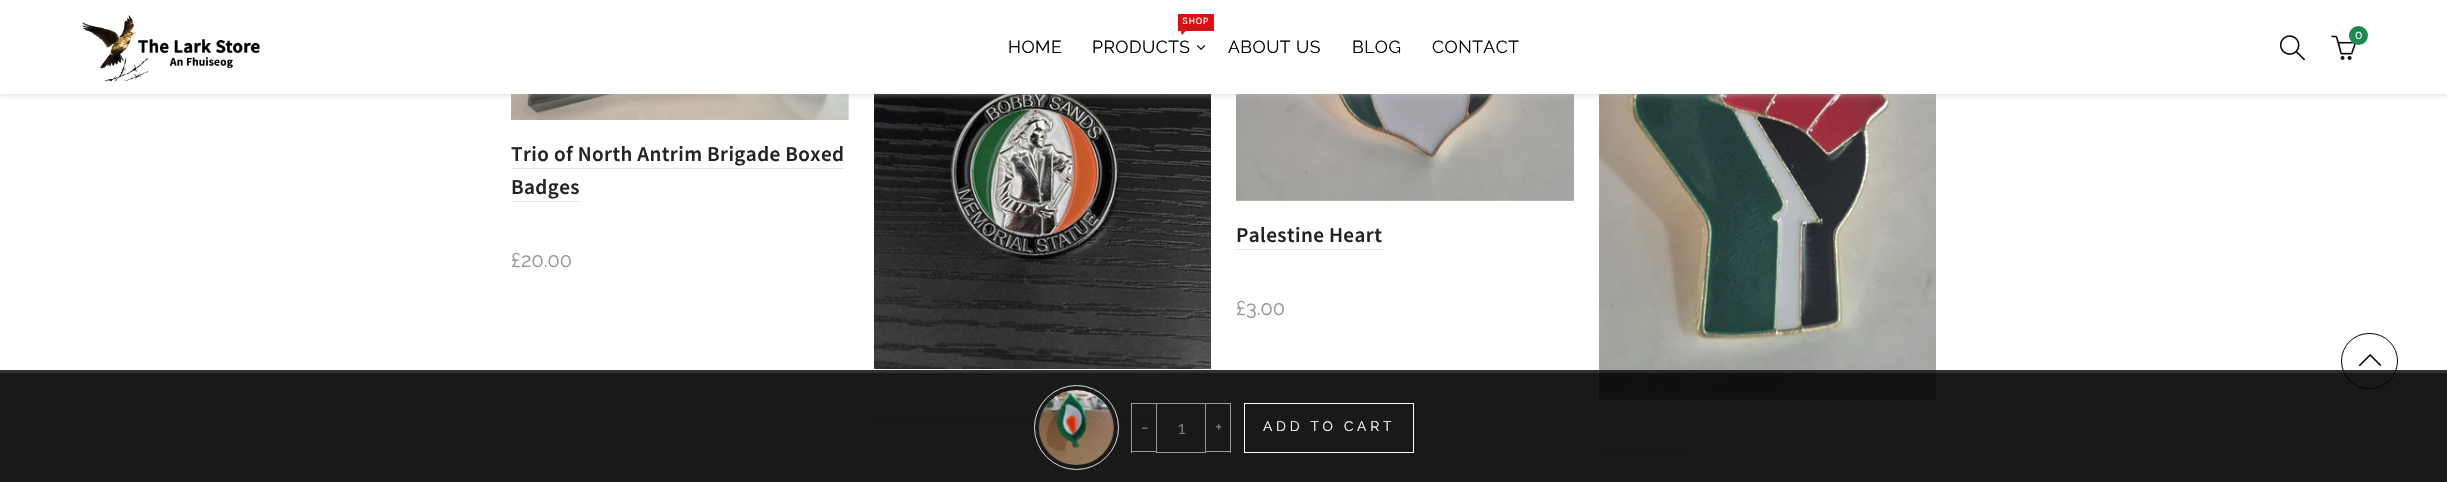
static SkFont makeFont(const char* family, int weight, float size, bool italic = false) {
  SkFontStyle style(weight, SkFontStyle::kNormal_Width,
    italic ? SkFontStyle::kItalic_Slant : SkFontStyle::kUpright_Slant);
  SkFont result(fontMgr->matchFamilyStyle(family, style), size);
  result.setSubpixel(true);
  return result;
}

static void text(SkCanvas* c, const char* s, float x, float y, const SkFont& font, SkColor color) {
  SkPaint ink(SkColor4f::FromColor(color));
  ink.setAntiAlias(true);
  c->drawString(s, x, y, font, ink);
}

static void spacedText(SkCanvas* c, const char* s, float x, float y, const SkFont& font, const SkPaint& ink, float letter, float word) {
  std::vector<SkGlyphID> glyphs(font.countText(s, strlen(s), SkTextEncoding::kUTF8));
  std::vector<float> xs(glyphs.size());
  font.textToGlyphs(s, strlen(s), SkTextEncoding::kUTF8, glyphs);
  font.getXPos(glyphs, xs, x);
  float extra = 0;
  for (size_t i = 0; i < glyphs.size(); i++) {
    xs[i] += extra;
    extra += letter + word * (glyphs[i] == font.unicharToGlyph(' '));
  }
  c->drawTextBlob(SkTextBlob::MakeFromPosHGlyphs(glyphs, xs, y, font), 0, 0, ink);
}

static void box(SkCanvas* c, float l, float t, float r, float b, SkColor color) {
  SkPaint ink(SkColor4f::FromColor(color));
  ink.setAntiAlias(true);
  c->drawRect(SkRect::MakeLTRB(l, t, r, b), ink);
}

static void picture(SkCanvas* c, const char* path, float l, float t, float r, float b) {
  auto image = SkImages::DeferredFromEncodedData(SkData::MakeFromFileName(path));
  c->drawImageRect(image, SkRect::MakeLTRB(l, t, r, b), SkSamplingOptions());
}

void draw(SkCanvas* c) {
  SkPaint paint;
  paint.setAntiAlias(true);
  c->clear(0xffffffff);
  picture(c, "img_06.png", 511, 94, 849, 120);
  picture(c, "img_07.png", 874, 94, 1211, 369);
  picture(c, "img_08.png", 1236, 94, 1574, 201);
  picture(c, "img_09.png", 1599, 94, 1936, 400);
  paint.setColor(0x80bebebe);
  paint.setMaskFilter(SkMaskFilter::MakeBlur(kNormal_SkBlurStyle, 3));
  c->drawRect(SkRect::MakeLTRB(0, 1, 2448, 95), paint);
  paint.setMaskFilter(nullptr);
  box(c, 0, 0, 2447, 94, 0xffffffff);
  picture(c, "img_01.png", 82, 15, 260, 82);
  SkFont face1 = makeFont("Raleway", 400, 17.5f);
  paint.setColor(0xff000000);
  spacedText(c, "HOME", 1008, 53, face1, paint, 0.5f, 0);
  box(c, 1178, 14, 1214, 31, 0xffd41212);
  SkFont face2 = makeFont("Karla", 400, 10);
  paint.setColor(0xffffffff);
  spacedText(c, "SHOP", 1182, 24, face2, paint, 0.5f, 0);
  picture(c, "img_02.png", 1181, 31, 1186, 35);
  paint.setColor(0xff000000);
  spacedText(c, "PRODUCTS", 1092, 53, face1, paint, 0.5f, 0);
  picture(c, "img_03.png", 1196, 45, 1206, 50);
  spacedText(c, "ABOUT US", 1228, 53, face1, paint, 0.5f, 0);
  spacedText(c, "BLOG", 1352, 53, face1, paint, 0.5f, 0);
  spacedText(c, "CONTACT", 1432, 53, face1, paint, 0.5f, 0);
  picture(c, "img_04.png", 2279, 35, 2305, 61);
  picture(c, "img_05.png", 2331, 35, 2356, 60);
  paint.setColor(0xff1f8a4e);
  c->drawCircle(2358.5f, 35.5f, 9.5f, paint);
  SkFont face3 = makeFont("Raleway", 400, 12);
  text(c, "0", 2355, 39, face3, 0xffffffff);
  SkFont face4 = makeFont("Noto Sans JP", 600, 18.75f);
  paint.setColor(0xff252222);
  spacedText(c, "Trio of North Antrim Brigade Boxed", 511, 161, face4, paint, 0.4f, 0);
  box(c, 511, 168, 844, 169, 0xffe6e6e6);
  spacedText(c, "Badges", 511, 194, face4, paint, 0.4f, 0);
  box(c, 511, 201, 580, 202, 0xffe6e6e6);
  SkFont face5 = makeFont("Raleway", 400, 20);
  text(c, "£20.00", 511, 267, face5, 0xff949494);
  box(c, 874, 416, 1153, 417, 0xffe6e6e6);
  spacedText(c, "Palestine Heart", 1236, 242, face4, paint, 0.4f, 0);
  box(c, 1236, 249, 1383, 250, 0xffe6e6e6);
  text(c, "£3.00", 1236, 315, face5, 0xff949494);
  box(c, 1599, 448, 1686, 449, 0xffe6e6e6);
  paint.setStyle(SkPaint::kStroke_Style);
  paint.setStrokeWidth(1);
  paint.setColor(0xff000000);
  c->drawRoundRect(SkRect::MakeLTRB(2341.5f, 333.5f, 2397.5f, 388.5f), 27.5f, 27.5f, paint);
  picture(c, "img_10.png", 2358, 354, 2382, 367);
  box(c, 0, 370, 2447, 482, 0xe6000000);
  box(c, 0, 370, 2447, 373, 0x1affffff);
  paint.setColor(0xffdddddd);
  c->drawCircle(1076.5f, 427.5f, 42, paint);
  picture(c, "img_11.png", 1038, 390, 1114, 465);
  box(c, 1131, 403, 1156, 404, 0xff999999);
  box(c, 1131, 451, 1156, 452, 0xff999999);
  box(c, 1131, 403, 1132, 453, 0xff999999);
  text(c, "-", 1141, 433, face1, 0xff848484);
  paint.setColor(0xff999999);
  c->drawRect(SkRect::MakeLTRB(1156.5f, 403.5f, 1205.5f, 452.5f), paint);
  text(c, "1", 1178, 434, face1, 0xff848484);
  box(c, 1206, 403, 1231, 404, 0xff999999);
  box(c, 1230, 403, 1231, 453, 0xff999999);
  box(c, 1206, 451, 1231, 452, 0xff999999);
  text(c, "+", 1215, 433, face1, 0xff848484);
  paint.setColor(0xffffffff);
  c->drawRect(SkRect::MakeLTRB(1244.5f, 403.5f, 1413.5f, 452.5f), paint);
  SkFont face6 = makeFont("Raleway", 400, 13.75f);
  paint.setStyle(SkPaint::kFill_Style);
  spacedText(c, "ADD TO CART", 1263, 431, face6, paint, 3.75f, 0);
}
